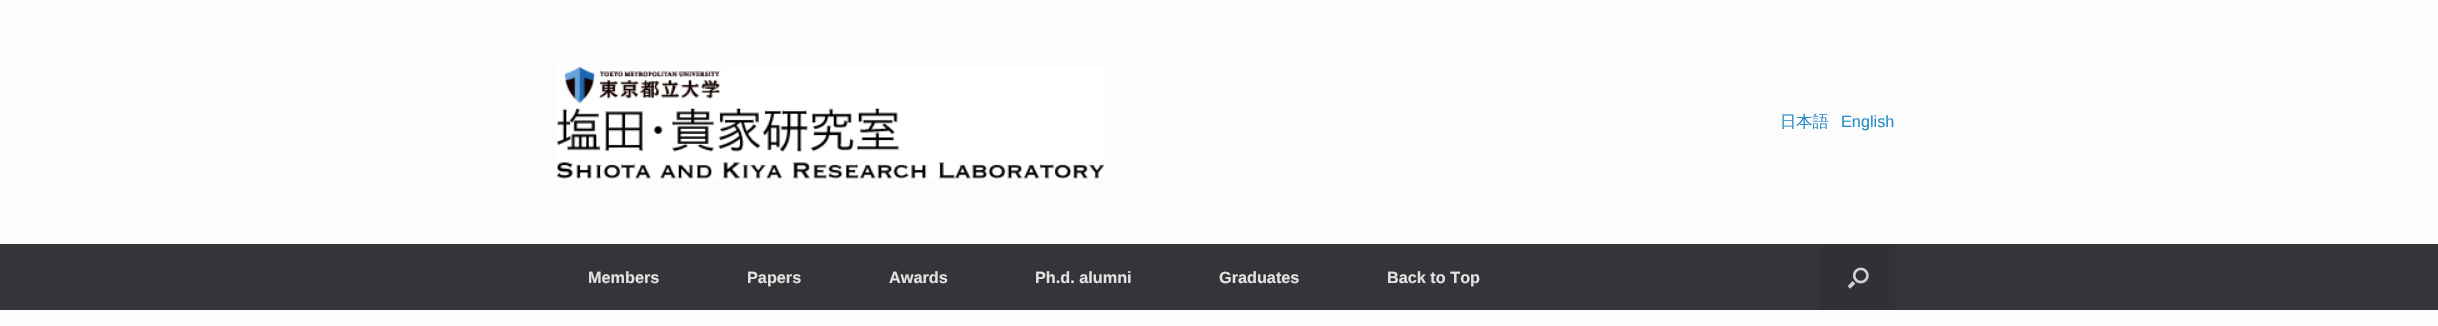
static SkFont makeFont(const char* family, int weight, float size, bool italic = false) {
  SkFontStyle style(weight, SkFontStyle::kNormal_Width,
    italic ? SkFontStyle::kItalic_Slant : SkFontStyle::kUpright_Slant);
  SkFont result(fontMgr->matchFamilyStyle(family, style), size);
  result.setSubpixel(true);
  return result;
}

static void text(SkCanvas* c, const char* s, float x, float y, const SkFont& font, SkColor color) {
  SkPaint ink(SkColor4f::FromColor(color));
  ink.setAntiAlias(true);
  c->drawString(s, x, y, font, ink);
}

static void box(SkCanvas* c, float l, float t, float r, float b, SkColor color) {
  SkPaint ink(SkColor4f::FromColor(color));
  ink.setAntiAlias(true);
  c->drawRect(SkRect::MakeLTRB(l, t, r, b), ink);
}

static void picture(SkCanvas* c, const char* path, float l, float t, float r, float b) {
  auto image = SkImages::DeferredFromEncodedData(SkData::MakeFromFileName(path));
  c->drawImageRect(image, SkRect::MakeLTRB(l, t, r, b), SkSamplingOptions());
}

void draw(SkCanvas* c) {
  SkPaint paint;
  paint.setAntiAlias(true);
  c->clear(0xfffcfcfc);
  picture(c, "img_01.png", 556, 66, 1105, 179);
  SkFont face1 = makeFont("WenQuanYi Zen Hei", 500, 16.25f);
  text(c, "日本語", 1780, 127, face1, 0xff248cc8);
  SkFont face2 = makeFont("Liberation Sans", 400, 16.25f);
  text(c, "English", 1841, 127, face2, 0xff248cc8);
  box(c, 0, 244, 2438, 310, 0xff343538);
  SkFont face3 = makeFont("Liberation Sans", 700, 16.25f);
  text(c, "Members", 588, 283, face3, 0xffe2e2e2);
  text(c, "Papers", 747, 283, face3, 0xffe2e2e2);
  text(c, "Awards", 889, 283, face3, 0xffe2e2e2);
  text(c, "Ph.d. alumni", 1035, 283, face3, 0xffe2e2e2);
  text(c, "Graduates", 1219, 283, face3, 0xffe2e2e2);
  text(c, "Back to Top", 1387, 283, face3, 0xffe2e2e2);
  box(c, 1821, 244, 1895, 310, 0xff303134);
  picture(c, "img_02.png", 1847, 267, 1869, 289);
}
